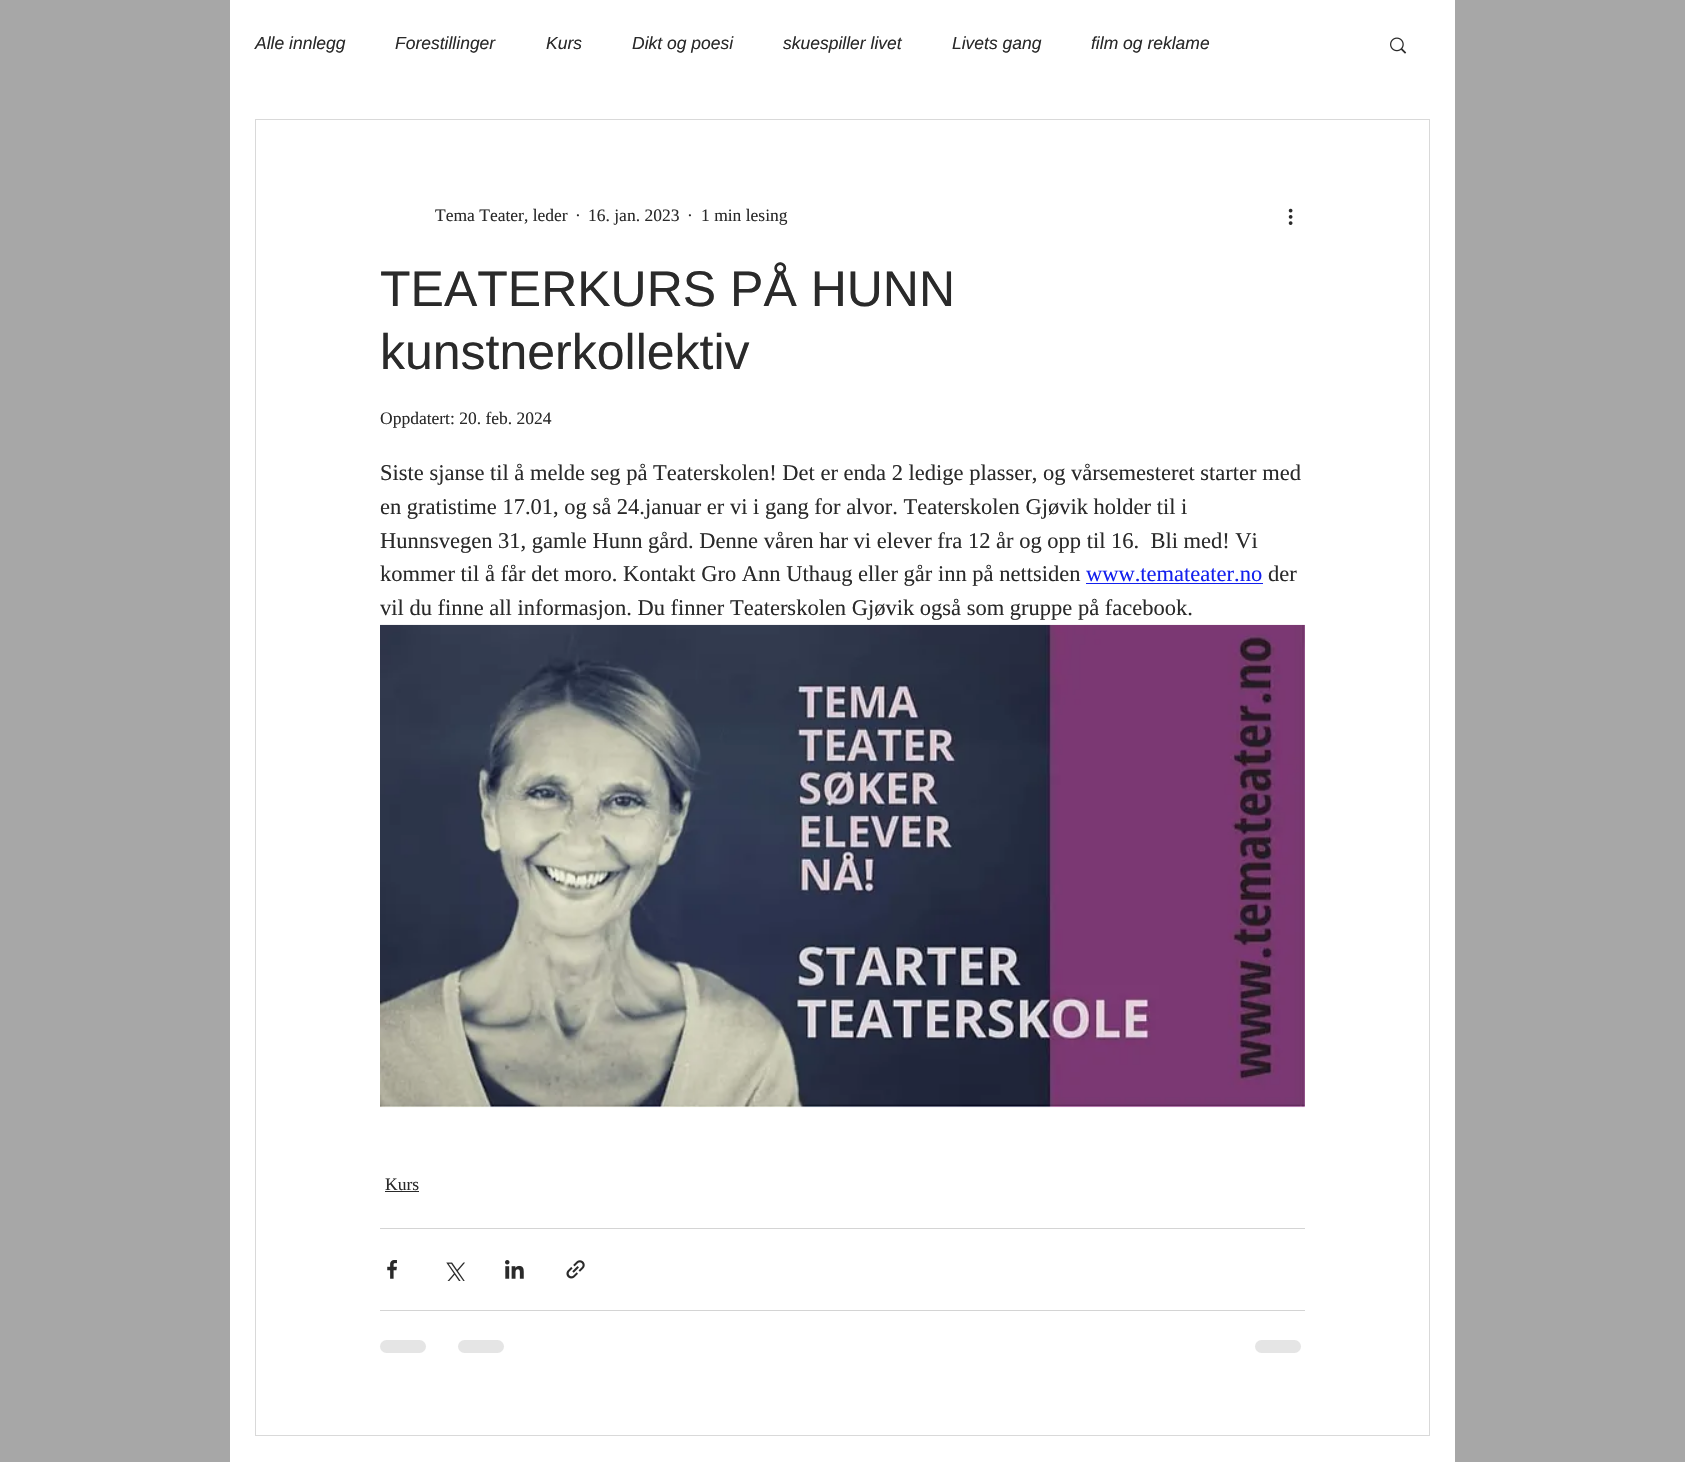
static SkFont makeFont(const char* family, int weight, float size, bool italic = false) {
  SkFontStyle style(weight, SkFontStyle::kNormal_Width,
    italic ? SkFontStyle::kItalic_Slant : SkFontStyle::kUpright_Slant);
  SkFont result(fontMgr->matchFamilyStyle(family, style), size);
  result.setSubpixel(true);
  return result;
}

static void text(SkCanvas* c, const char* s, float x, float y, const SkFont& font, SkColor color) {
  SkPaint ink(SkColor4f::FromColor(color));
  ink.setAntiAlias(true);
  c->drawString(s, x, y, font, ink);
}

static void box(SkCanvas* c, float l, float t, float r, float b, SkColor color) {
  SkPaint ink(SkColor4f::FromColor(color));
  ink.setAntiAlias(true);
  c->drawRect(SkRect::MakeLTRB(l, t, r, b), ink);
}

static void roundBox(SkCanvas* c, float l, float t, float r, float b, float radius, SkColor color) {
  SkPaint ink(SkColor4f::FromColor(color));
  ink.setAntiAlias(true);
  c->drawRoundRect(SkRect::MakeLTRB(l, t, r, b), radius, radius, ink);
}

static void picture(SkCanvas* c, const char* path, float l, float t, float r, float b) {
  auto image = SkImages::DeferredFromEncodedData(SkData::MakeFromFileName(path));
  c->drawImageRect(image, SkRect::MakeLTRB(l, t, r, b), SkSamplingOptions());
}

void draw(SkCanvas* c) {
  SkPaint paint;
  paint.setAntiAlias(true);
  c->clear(0xffa7a7a7);
  box(c, 230, 0, 1455, 1462, 0xffffffff);
  SkFont face1 = makeFont("Liberation Sans", 400, 17.5f, true);
  text(c, "Alle innlegg", 255, 49, face1, 0xff2a2a2a);
  text(c, "Forestillinger", 395, 49, face1, 0xff2a2a2a);
  text(c, "Kurs", 546, 49, face1, 0xff2a2a2a);
  text(c, "Dikt og poesi", 632, 49, face1, 0xff2a2a2a);
  text(c, "skuespiller livet", 783, 49, face1, 0xff2a2a2a);
  text(c, "Livets gang", 952, 49, face1, 0xff2a2a2a);
  text(c, "film og reklame", 1091, 49, face1, 0xff2a2a2a);
  picture(c, "img_01.png", 1390, 37, 1407, 54);
  paint.setStyle(SkPaint::kStroke_Style);
  paint.setStrokeWidth(1);
  paint.setColor(0xffd9d9d9);
  c->drawRect(SkRect::MakeLTRB(255.5f, 119.5f, 1429.5f, 1435.5f), paint);
  SkFont face2 = makeFont("Liberation Serif", 400, 17.5f);
  text(c, "Tema Teater, leder", 435, 221, face2, 0xff2a2a2a);
  text(c, "·", 575, 221, face2, 0xff2a2a2a);
  text(c, "16. jan. 2023", 588, 221, face2, 0xff2a2a2a);
  text(c, "·", 687, 221, face2, 0xff2a2a2a);
  text(c, "1 min lesing", 701, 221, face2, 0xff2a2a2a);
  picture(c, "img_02.png", 1288, 208, 1293, 225);
  SkFont face3 = makeFont("Liberation Sans", 400, 50);
  text(c, "TEATERKURS PÅ HUNN", 380, 306, face3, 0xff2a2a2a);
  text(c, "kunstnerkollektiv", 380, 369, face3, 0xff2a2a2a);
  text(c, "Oppdatert: 20. feb. 2024", 380, 424, face2, 0xff2a2a2a);
  SkFont face4 = makeFont("Liberation Serif", 400, 22.5f);
  text(c, "Siste sjanse til å melde seg på Teaterskolen! Det er enda 2 ledige plasser, og vårsemesteret starter med", 380, 480, face4, 0xff2a2a2a);
  text(c, "en gratistime 17.01, og så 24.januar er vi i gang for alvor. Teaterskolen Gjøvik holder til i", 380, 514, face4, 0xff2a2a2a);
  text(c, "Hunnsvegen 31, gamle Hunn gård. Denne våren har vi elever fra 12 år og opp til 16.  Bli med! Vi", 380, 548, face4, 0xff2a2a2a);
  text(c, "kommer til å får det moro. Kontakt Gro Ann Uthaug eller går inn på nettsiden", 380, 581, face4, 0xff2a2a2a);
  text(c, "www.temateater.no", 1086, 581, face4, 0xff1320ed);
  box(c, 1086, 583, 1263, 584, 0xff1320ed);
  text(c, "der", 1268, 581, face4, 0xff2a2a2a);
  text(c, "vil du finne all informasjon. Du finner Teaterskolen Gjøvik også som gruppe på facebook.", 380, 615, face4, 0xff2a2a2a);
  picture(c, "img_03.png", 380, 624, 1305, 1108);
  text(c, "Kurs", 385, 1190, face2, 0xff2a2a2a);
  box(c, 385, 1191, 419, 1192, 0xff2a2a2a);
  box(c, 380, 1228, 1305, 1229, 0xffd4d4d4);
  picture(c, "img_04.png", 387, 1260, 397, 1279);
  picture(c, "img_05.png", 446, 1262, 465, 1281);
  picture(c, "img_06.png", 505, 1260, 524, 1279);
  picture(c, "img_07.png", 566, 1260, 585, 1279);
  box(c, 380, 1310, 1305, 1311, 0xffd4d4d4);
  roundBox(c, 380, 1340, 426, 1353, 6.5f, 0xffe5e5e5);
  roundBox(c, 458, 1340, 504, 1353, 6.5f, 0xffe5e5e5);
  roundBox(c, 1255, 1340, 1301, 1353, 6.5f, 0xffe5e5e5);
}
